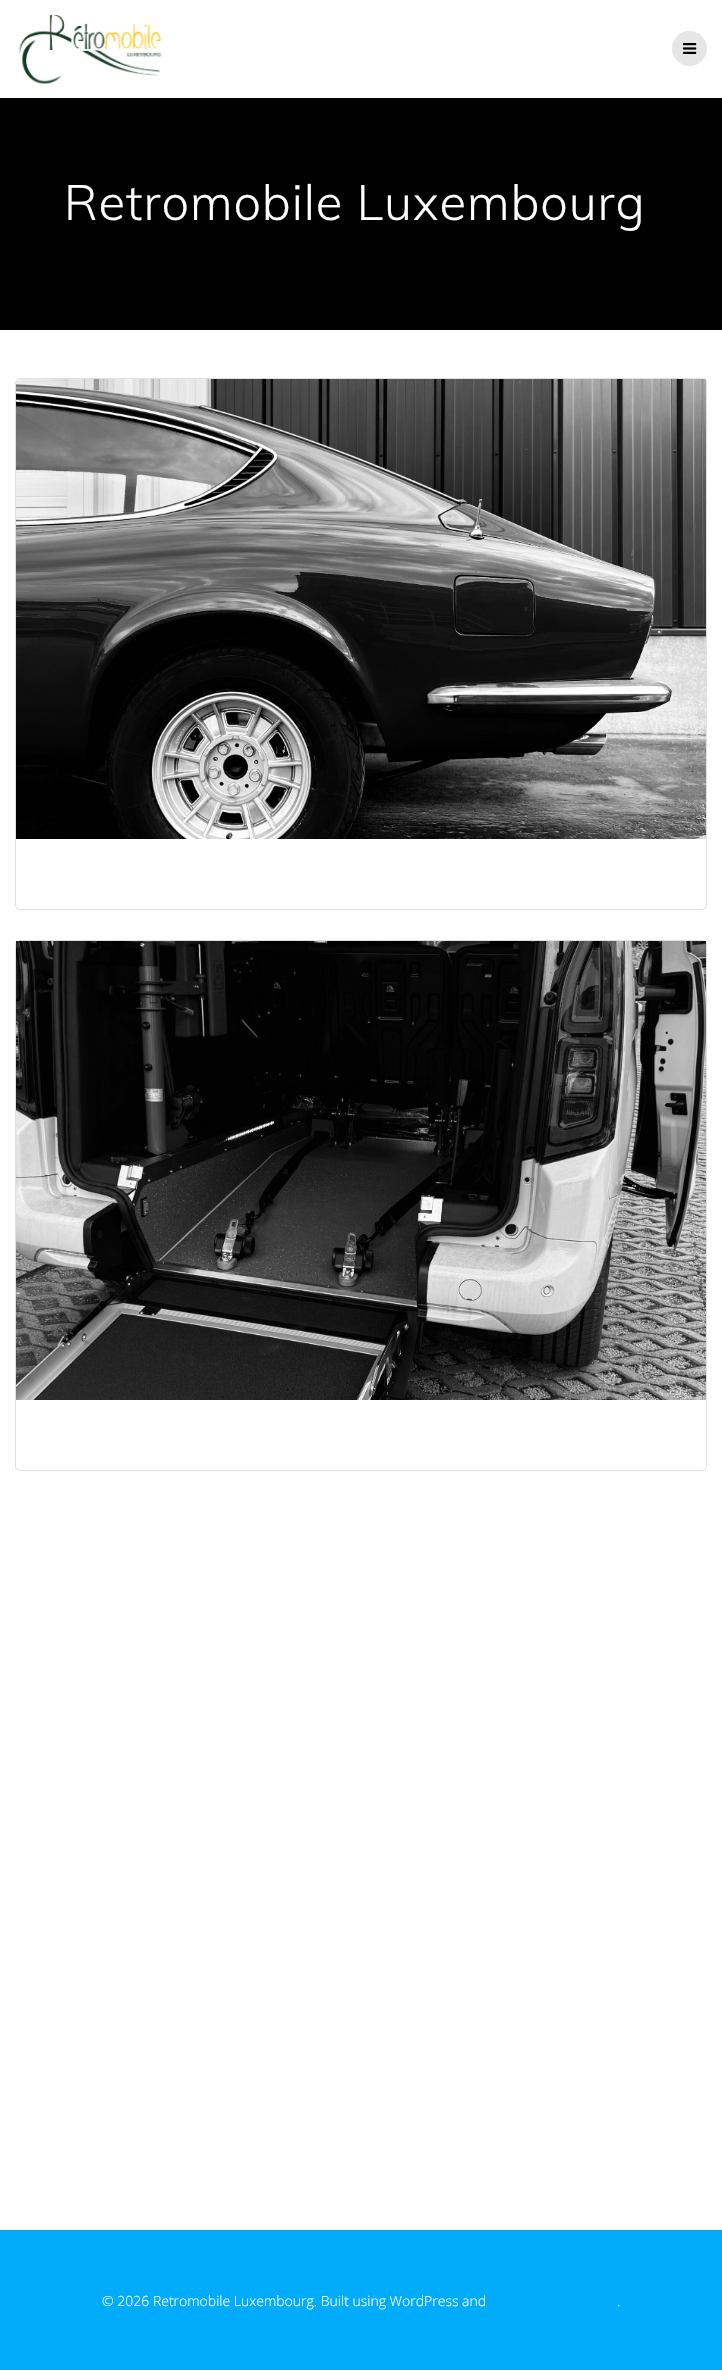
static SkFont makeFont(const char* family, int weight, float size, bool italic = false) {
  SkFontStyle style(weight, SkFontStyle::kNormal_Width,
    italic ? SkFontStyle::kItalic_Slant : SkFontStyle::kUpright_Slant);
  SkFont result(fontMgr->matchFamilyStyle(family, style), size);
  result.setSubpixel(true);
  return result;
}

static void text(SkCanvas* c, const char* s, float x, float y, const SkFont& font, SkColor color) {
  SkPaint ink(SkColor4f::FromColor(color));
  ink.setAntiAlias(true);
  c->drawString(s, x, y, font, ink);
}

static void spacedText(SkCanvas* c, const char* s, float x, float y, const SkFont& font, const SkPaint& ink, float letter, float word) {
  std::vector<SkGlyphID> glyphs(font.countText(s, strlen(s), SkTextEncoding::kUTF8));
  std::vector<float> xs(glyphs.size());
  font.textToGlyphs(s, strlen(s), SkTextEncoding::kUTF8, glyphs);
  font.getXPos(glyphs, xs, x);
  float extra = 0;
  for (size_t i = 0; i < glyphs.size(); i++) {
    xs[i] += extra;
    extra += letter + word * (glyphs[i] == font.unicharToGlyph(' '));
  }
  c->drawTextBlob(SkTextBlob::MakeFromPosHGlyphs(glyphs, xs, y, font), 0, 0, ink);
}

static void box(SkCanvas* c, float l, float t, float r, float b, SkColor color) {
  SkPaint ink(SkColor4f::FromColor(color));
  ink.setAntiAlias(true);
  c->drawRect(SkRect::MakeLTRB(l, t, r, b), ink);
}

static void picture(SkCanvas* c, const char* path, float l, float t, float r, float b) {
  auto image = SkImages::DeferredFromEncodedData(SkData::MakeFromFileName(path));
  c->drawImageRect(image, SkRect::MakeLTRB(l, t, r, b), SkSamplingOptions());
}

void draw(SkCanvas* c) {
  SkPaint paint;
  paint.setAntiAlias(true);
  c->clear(0xffffffff);
  picture(c, "img_01.png", 19, 14, 162, 84);
  paint.setColor(0xffe6e6e6);
  c->drawCircle(689.5f, 48.5f, 17.5f, paint);
  picture(c, "img_02.png", 683, 43, 697, 54);
  box(c, 0, 98, 722, 330, 0xff000000);
  SkFont face1 = makeFont("Muli", 300, 49);
  paint.setColor(0xffffffff);
  spacedText(c, "Retromobile Luxembourg", 64, 220, face1, paint, 0.9f, 0);
  paint.setStyle(SkPaint::kStroke_Style);
  paint.setStrokeWidth(1);
  paint.setColor(0xffe0e1e1);
  c->drawRoundRect(SkRect::MakeLTRB(15.5f, 378.5f, 706.5f, 909.5f), 4.5f, 4.5f, paint);
  picture(c, "img_03.png", 16, 379, 706, 839);
  c->drawRoundRect(SkRect::MakeLTRB(15.5f, 940.5f, 706.5f, 1470.5f), 4.5f, 4.5f, paint);
  picture(c, "img_04.png", 16, 941, 706, 1400);
  SkFont face2 = makeFont("Open Sans", 400, 9);
  paint.setStyle(SkPaint::kFill_Style);
  paint.setColor(0xff1a1a1a);
  spacedText(c, "a", 283, 1174, face2, paint, 1, 0);
  spacedText(c, "e", 438, 1174, face2, paint, 1, 0);
  box(c, 0, 2230, 722, 2370, 0xff00abfa);
  SkFont face3 = makeFont("Open Sans", 300, 14);
  text(c, "© 2026 Retromobile Luxembourg. Built using WordPress and", 102, 2306, face3, 0xffffffff);
  text(c, ".", 617, 2306, face3, 0xffffffff);
  box(c, 489, 2307, 617, 2308, 0xff03a9f4);
}
